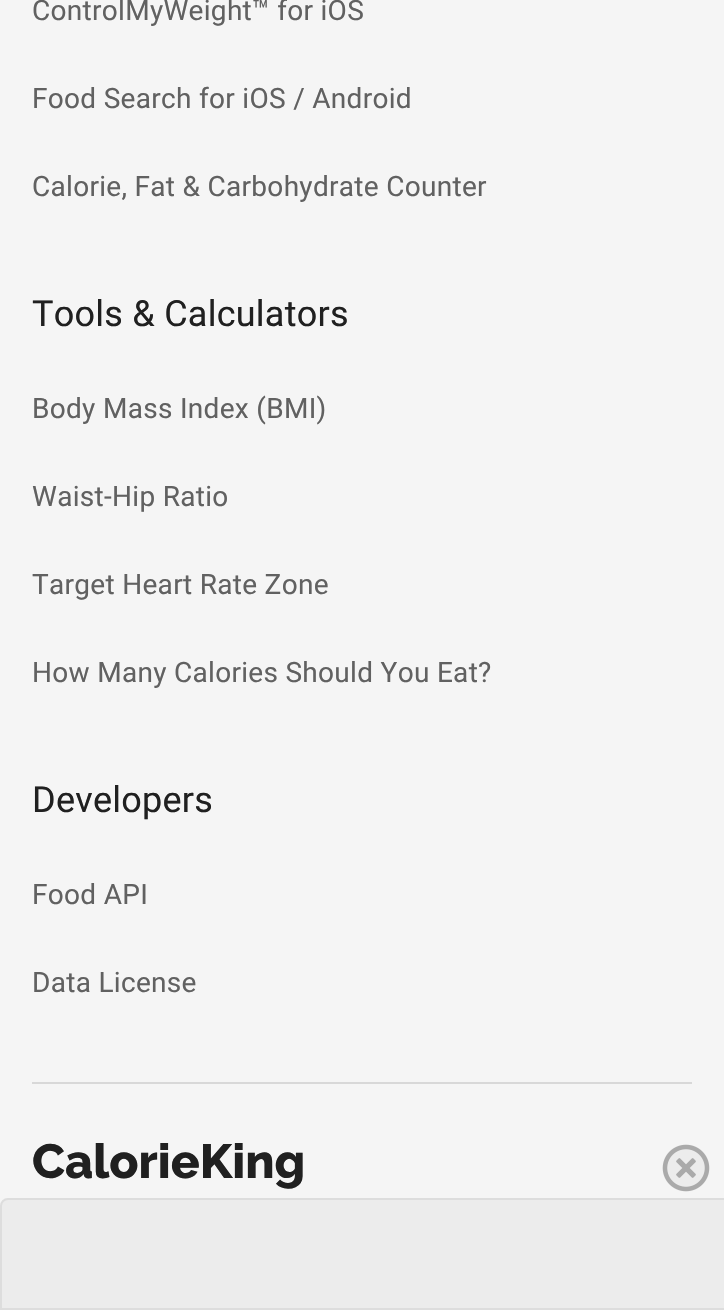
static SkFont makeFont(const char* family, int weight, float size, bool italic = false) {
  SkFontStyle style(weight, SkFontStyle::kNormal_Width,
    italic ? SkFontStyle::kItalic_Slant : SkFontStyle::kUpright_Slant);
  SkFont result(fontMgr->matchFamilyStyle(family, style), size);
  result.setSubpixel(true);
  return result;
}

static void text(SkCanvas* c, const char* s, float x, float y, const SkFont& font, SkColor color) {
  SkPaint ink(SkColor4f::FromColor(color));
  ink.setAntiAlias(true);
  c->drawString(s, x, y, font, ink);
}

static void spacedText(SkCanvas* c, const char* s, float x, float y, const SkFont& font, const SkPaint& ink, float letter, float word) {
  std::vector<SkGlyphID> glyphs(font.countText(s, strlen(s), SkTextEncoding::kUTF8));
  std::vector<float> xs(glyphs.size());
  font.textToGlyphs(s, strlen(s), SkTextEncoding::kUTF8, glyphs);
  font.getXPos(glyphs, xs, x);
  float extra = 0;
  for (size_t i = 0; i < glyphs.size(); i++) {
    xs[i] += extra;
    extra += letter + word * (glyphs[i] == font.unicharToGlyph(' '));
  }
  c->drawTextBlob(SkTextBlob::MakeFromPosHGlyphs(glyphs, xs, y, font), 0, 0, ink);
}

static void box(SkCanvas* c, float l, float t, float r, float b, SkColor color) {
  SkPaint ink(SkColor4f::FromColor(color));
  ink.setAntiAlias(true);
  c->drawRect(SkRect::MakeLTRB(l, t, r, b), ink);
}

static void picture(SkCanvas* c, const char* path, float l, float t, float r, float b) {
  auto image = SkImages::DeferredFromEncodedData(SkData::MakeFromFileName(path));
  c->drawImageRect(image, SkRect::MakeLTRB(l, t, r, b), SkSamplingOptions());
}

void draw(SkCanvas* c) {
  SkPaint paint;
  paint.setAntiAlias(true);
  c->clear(0xfff5f5f5);
  SkFont face1 = makeFont("Roboto", 400, 28);
  paint.setColor(0xff616161);
  spacedText(c, "ControlMyWeight™ for iOS", 32, 20, face1, paint, 0.3f, 0);
  spacedText(c, "Food Search for iOS / Android", 32, 108, face1, paint, 0.3f, 0);
  spacedText(c, "Calorie, Fat & Carbohydrate Counter", 32, 196, face1, paint, 0.3f, 0);
  SkFont face2 = makeFont("Roboto", 400, 36);
  paint.setColor(0xff202020);
  spacedText(c, "Tools & Calculators", 32, 326, face2, paint, 0.25f, 0);
  paint.setColor(0xff616161);
  spacedText(c, "Body Mass Index (BMI)", 32, 418, face1, paint, 0.3f, 0);
  spacedText(c, "Waist-Hip Ratio", 32, 506, face1, paint, 0.3f, 0);
  spacedText(c, "Target Heart Rate Zone", 32, 594, face1, paint, 0.3f, 0);
  spacedText(c, "How Many Calories Should You Eat?", 32, 682, face1, paint, 0.3f, 0);
  paint.setColor(0xff202020);
  spacedText(c, "Developers", 32, 812, face2, paint, 0.25f, 0);
  paint.setColor(0xff616161);
  spacedText(c, "Food API", 32, 904, face1, paint, 0.3f, 0);
  spacedText(c, "Data License", 32, 992, face1, paint, 0.3f, 0);
  box(c, 32, 1082, 692, 1084, 0xffd8d8d8);
  SkFont face3 = makeFont("Raleway", 800, 48);
  text(c, "CalorieKing", 32, 1178, face3, 0xff202020);
  paint.setColor(0xe3ebebeb);
  c->drawPath(SkPathBuilder().moveTo(8, 1199).lineTo(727, 1199).lineTo(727, 1309).lineTo(1, 1309).lineTo(1, 1206).cubicTo(1, 1202, 4, 1199, 8, 1199).close().detach(), paint);
  paint.setStyle(SkPaint::kStroke_Style);
  paint.setStrokeWidth(2);
  paint.setColor(0xffdddddd);
  c->drawPath(SkPathBuilder().moveTo(8, 1199).lineTo(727, 1199).lineTo(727, 1309).lineTo(1, 1309).lineTo(1, 1206).cubicTo(1, 1202, 4, 1199, 8, 1199).close().detach(), paint);
  picture(c, "img_01.png", 662, 1144, 710, 1192);
}
